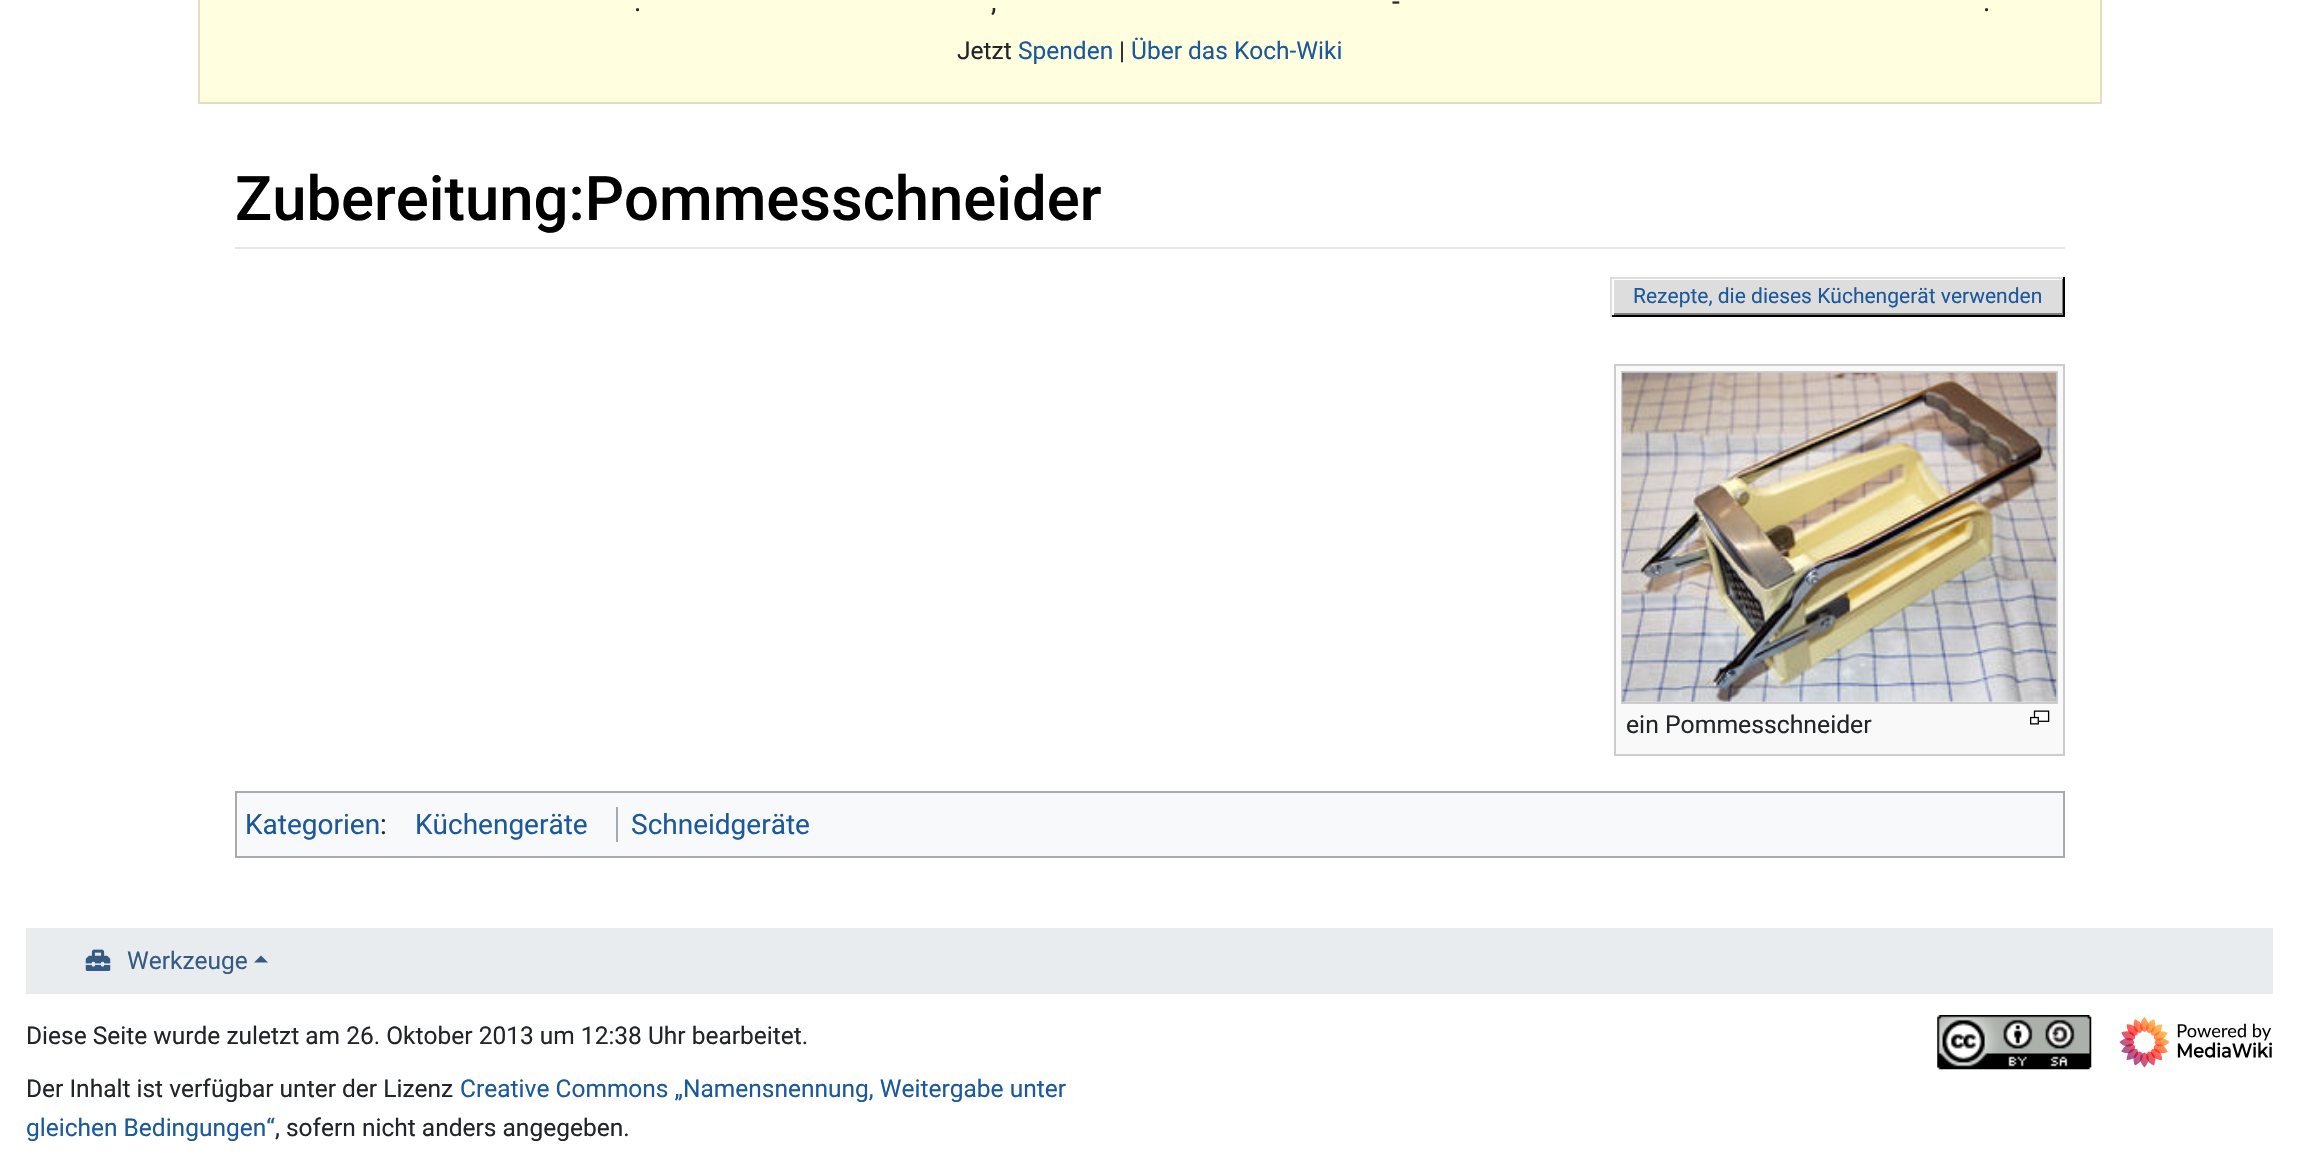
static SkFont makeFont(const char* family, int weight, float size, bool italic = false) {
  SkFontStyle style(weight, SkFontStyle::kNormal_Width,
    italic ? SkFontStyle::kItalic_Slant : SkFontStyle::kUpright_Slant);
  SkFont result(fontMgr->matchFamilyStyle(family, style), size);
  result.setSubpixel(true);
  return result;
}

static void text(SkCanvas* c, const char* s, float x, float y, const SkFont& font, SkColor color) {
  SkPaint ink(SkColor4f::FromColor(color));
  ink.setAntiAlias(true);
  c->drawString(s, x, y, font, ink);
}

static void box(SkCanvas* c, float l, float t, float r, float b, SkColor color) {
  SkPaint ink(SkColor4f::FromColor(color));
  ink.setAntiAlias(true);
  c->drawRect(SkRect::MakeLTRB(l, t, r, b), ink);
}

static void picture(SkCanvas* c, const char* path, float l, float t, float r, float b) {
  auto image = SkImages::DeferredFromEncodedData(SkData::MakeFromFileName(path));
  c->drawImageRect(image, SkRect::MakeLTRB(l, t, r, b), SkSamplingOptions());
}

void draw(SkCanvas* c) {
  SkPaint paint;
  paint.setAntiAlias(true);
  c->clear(0xffffffff);
  box(c, 200, 0, 2100, 102, 0xffffffe0);
  box(c, 2100, 0, 2102, 103, 0xffe0e0c0);
  box(c, 198, 102, 2102, 104, 0xffe0e0c0);
  box(c, 198, 0, 200, 103, 0xffe0e0c0);
  SkFont face1 = makeFont("Roboto", 400, 28);
  text(c, "-", 1392, 11, face1, 0xff212529);
  text(c, ".", 634, 11, face1, 0xff212529);
  text(c, ",", 991, 11, face1, 0xff212529);
  text(c, ".", 1983, 11, face1, 0xff212529);
  SkFont face2 = makeFont("Roboto", 400, 24.5f);
  text(c, "Jetzt", 957, 59, face2, 0xff212529);
  text(c, "Spenden", 1018, 59, face2, 0xff1b599b);
  text(c, "|", 1119, 59, face2, 0xff212529);
  text(c, "Über das Koch-Wiki", 1131, 59, face2, 0xff1b599b);
  box(c, 235, 247, 2065, 249, 0xffe6e6e6);
  SkFont face3 = makeFont("Roboto", 500, 61.6f);
  text(c, "Zubereitung:Pommesschneider", 235, 220, face3, 0xff000000);
  box(c, 2062, 278, 2063, 315, 0xff808080);
  box(c, 1610, 277, 2065, 279, 0xffdddddd);
  box(c, 2063, 277, 2065, 317, 0xff000000);
  box(c, 1610, 315, 2065, 317, 0xff000000);
  box(c, 1610, 277, 1612, 317, 0xffdddddd);
  box(c, 1614, 280, 2062, 313, 0xffdddddd);
  box(c, 1612, 313, 2063, 315, 0xff808080);
  box(c, 1612, 313, 1614, 315, 0xffffffff);
  SkFont face4 = makeFont("Roboto", 400, 21);
  text(c, "Rezepte, die dieses Küchengerät verwenden", 1633, 303, face4, 0xff1b599b);
  box(c, 1616, 366, 2063, 754, 0xfff9f9f9);
  box(c, 1614, 364, 2065, 366, 0xffcccccc);
  box(c, 1614, 754, 2065, 756, 0xffcccccc);
  box(c, 2063, 364, 2065, 756, 0xffcccccc);
  box(c, 1614, 364, 1616, 756, 0xffcccccc);
  paint.setStyle(SkPaint::kStroke_Style);
  paint.setStrokeWidth(2);
  paint.setColor(0xffcccccc);
  c->drawRect(SkRect::MakeLTRB(1622, 372, 2057, 703), paint);
  picture(c, "img_01.png", 1622, 372, 2057, 702);
  picture(c, "img_02.png", 2030, 710, 2050, 725);
  SkFont face5 = makeFont("Roboto", 400, 24.75f);
  text(c, "ein Pommesschneider", 1626, 733, face5, 0xff212529);
  paint.setStyle(SkPaint::kFill_Style);
  paint.setColor(0xfff8f9fa);
  c->drawRect(SkRect::MakeLTRB(236, 792, 2064, 857), paint);
  paint.setStyle(SkPaint::kStroke_Style);
  paint.setColor(0xffaaaaaa);
  c->drawRect(SkRect::MakeLTRB(236, 792, 2064, 857), paint);
  text(c, "Kategorien", 245, 834, face1, 0xff1b599b);
  text(c, ":", 380, 834, face1, 0xff212529);
  text(c, "Küchengeräte", 415, 834, face1, 0xff1b599b);
  box(c, 616, 807, 618, 842, 0xffa2a9b1);
  text(c, "Schneidgeräte", 631, 834, face1, 0xff1b599b);
  box(c, 26, 928, 2273, 994, 0xffe9ecef);
  picture(c, "img_03.png", 85, 949, 111, 971);
  text(c, "Werkzeuge", 127, 969, face2, 0xff355b84);
  paint.setStyle(SkPaint::kFill_Style);
  paint.setColor(0xff355b84);
  c->drawPath(SkPathBuilder().moveTo(268, 962.5f).lineTo(254, 962.5f).lineTo(261, 955.5f).close().detach(), paint);
  text(c, "Diese Seite wurde zuletzt am 26. Oktober 2013 um 12:38 Uhr bearbeitet.", 26, 1044, face2, 0xff212529);
  text(c, "Der Inhalt ist verfügbar unter der Lizenz", 26, 1097, face2, 0xff212529);
  text(c, "Creative Commons „Namensnennung, Weitergabe unter", 460, 1097, face2, 0xff1b599b);
  text(c, "gleichen Bedingungen“", 26, 1136, face2, 0xff1b599b);
  text(c, ", sofern nicht anders angegeben.", 275, 1136, face2, 0xff212529);
  picture(c, "img_04.png", 1937, 1015, 2092, 1070);
  picture(c, "img_05.png", 2119, 1017, 2272, 1068);
}
